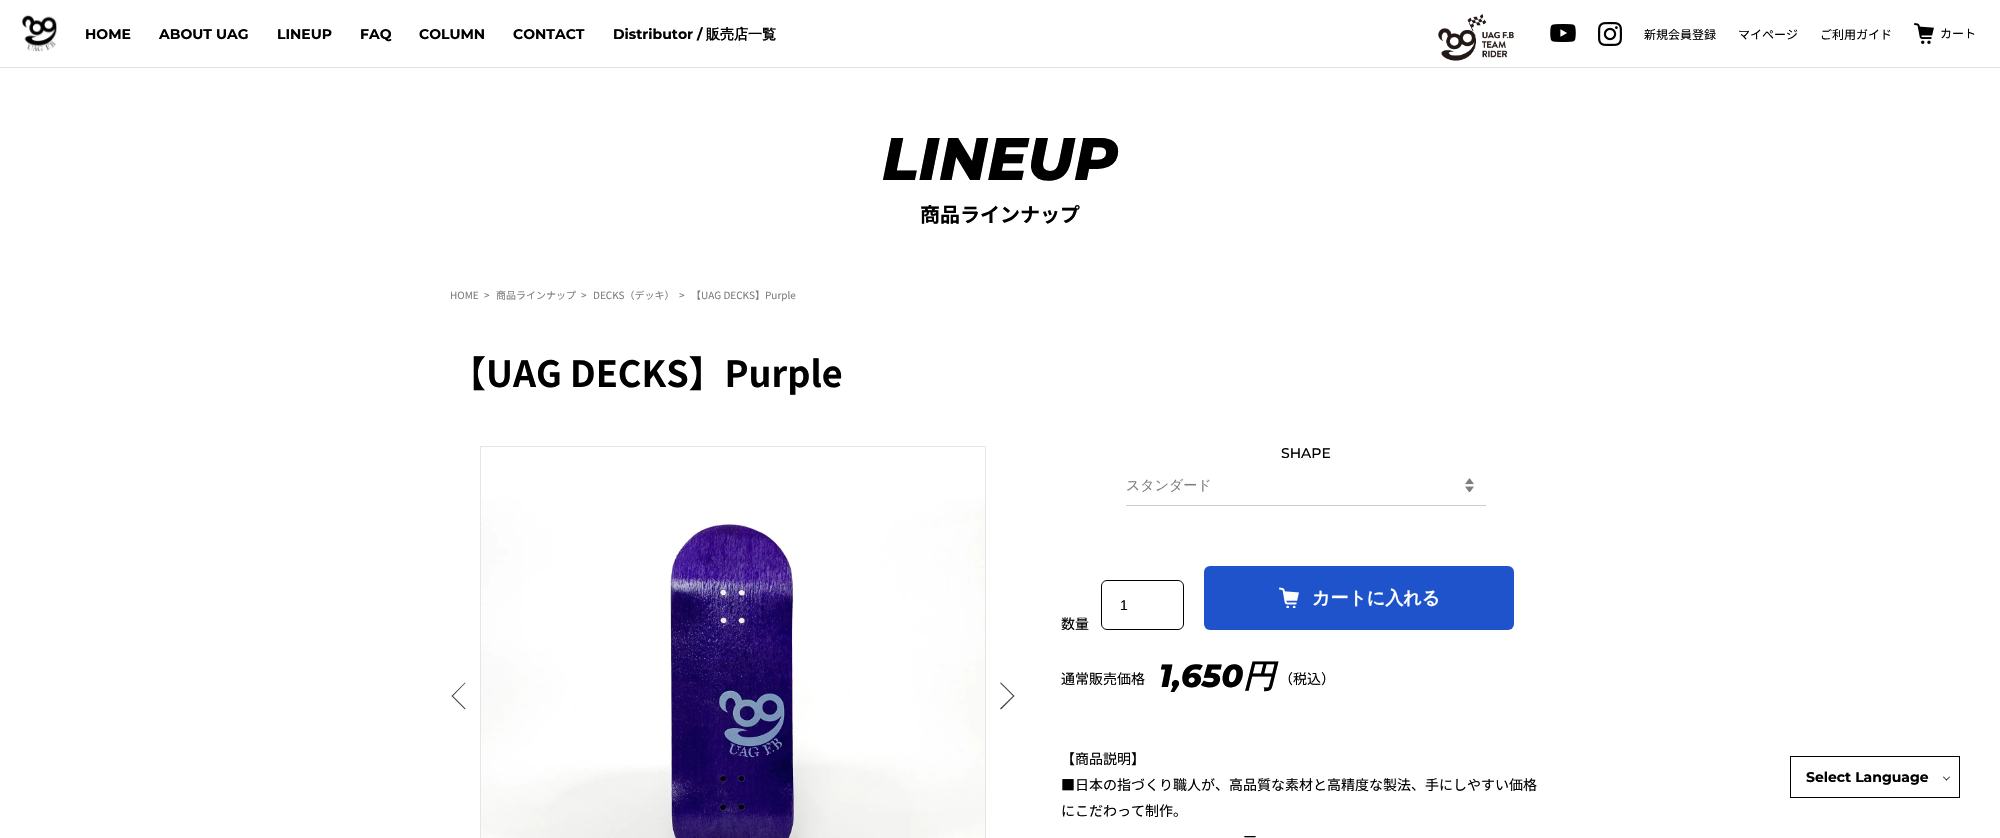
static SkFont makeFont(const char* family, int weight, float size, bool italic = false) {
  SkFontStyle style(weight, SkFontStyle::kNormal_Width,
    italic ? SkFontStyle::kItalic_Slant : SkFontStyle::kUpright_Slant);
  SkFont result(fontMgr->matchFamilyStyle(family, style), size);
  result.setSubpixel(true);
  return result;
}

static void text(SkCanvas* c, const char* s, float x, float y, const SkFont& font, SkColor color) {
  SkPaint ink(SkColor4f::FromColor(color));
  ink.setAntiAlias(true);
  c->drawString(s, x, y, font, ink);
}

static void box(SkCanvas* c, float l, float t, float r, float b, SkColor color) {
  SkPaint ink(SkColor4f::FromColor(color));
  ink.setAntiAlias(true);
  c->drawRect(SkRect::MakeLTRB(l, t, r, b), ink);
}

static void roundBox(SkCanvas* c, float l, float t, float r, float b, float radius, SkColor color) {
  SkPaint ink(SkColor4f::FromColor(color));
  ink.setAntiAlias(true);
  c->drawRoundRect(SkRect::MakeLTRB(l, t, r, b), radius, radius, ink);
}

static void picture(SkCanvas* c, const char* path, float l, float t, float r, float b) {
  auto image = SkImages::DeferredFromEncodedData(SkData::MakeFromFileName(path));
  c->drawImageRect(image, SkRect::MakeLTRB(l, t, r, b), SkSamplingOptions());
}

void draw(SkCanvas* c) {
  SkPaint paint;
  paint.setAntiAlias(true);
  c->clear(0xffffffff);
  box(c, 0, 67, 2000, 68, 0xffe0e0e0);
  picture(c, "img_01.png", 21, 15, 57, 52);
  SkFont face1 = makeFont("Montserrat", 700, 14);
  text(c, "HOME", 85, 39, face1, 0xff000000);
  text(c, "ABOUT UAG", 159, 39, face1, 0xff000000);
  text(c, "LINEUP", 277, 39, face1, 0xff000000);
  text(c, "FAQ", 360, 39, face1, 0xff000000);
  text(c, "COLUMN", 419, 39, face1, 0xff000000);
  text(c, "CONTACT", 513, 39, face1, 0xff000000);
  text(c, "Distributor /", 613, 39, face1, 0xff000000);
  SkFont face2 = makeFont("WenQuanYi Zen Hei", 700, 14);
  text(c, "販売店一覧", 706, 39, face2, 0xff000000);
  picture(c, "img_02.png", 1438, 13, 1514, 61);
  picture(c, "img_03.png", 1550, 24, 1576, 42);
  picture(c, "img_04.png", 1598, 22, 1622, 46);
  SkFont face3 = makeFont("Noto Sans JP", 400, 12);
  text(c, "新規会員登録", 1644, 39, face3, 0xff000000);
  text(c, "マイページ", 1738, 39, face3, 0xff000000);
  text(c, "ご利用ガイド", 1820, 39, face3, 0xff000000);
  picture(c, "img_05.png", 1914, 23, 1934, 44);
  text(c, "カート", 1940, 38, face3, 0xff000000);
  SkFont face4 = makeFont("Montserrat", 800, 60, true);
  text(c, "LINEUP", 882, 180, face4, 0xff000000);
  SkFont face5 = makeFont("Noto Sans JP", 700, 20);
  text(c, "商品ラインナップ", 920, 222, face5, 0xff000000);
  SkFont face6 = makeFont("Noto Sans JP", 400, 10);
  text(c, "HOME", 450, 299, face6, 0xff7e7e7e);
  text(c, ">", 484, 299, face6, 0xff7e7e7e);
  text(c, "商品ラインナップ", 496, 299, face6, 0xff7e7e7e);
  text(c, ">", 581, 299, face6, 0xff7e7e7e);
  text(c, "DECKS（デッキ）", 593, 299, face6, 0xff7e7e7e);
  text(c, ">", 679, 299, face6, 0xff7e7e7e);
  text(c, "【UAG DECKS】Purple", 691, 299, face6, 0xff7e7e7e);
  SkFont face7 = makeFont("Noto Sans JP", 700, 36);
  text(c, "【UAG DECKS】Purple", 450, 387, face7, 0xff000000);
  paint.setColor(0xff404040);
  c->drawPath(SkPathBuilder().moveTo(465, 709.5f).lineTo(451.5f, 696).lineTo(452.5f, 695.5f).lineTo(465.5f, 708.5f).close().detach(), paint);
  c->drawPath(SkPathBuilder().moveTo(452.5f, 696.5f).lineTo(451.5f, 696).lineTo(465, 682.5f).lineTo(465.5f, 683).close().detach(), paint);
  paint.setStyle(SkPaint::kStroke_Style);
  paint.setStrokeWidth(1);
  paint.setColor(0xffe6e6e6);
  c->drawRect(SkRect::MakeLTRB(480.5f, 446.5f, 985.5f, 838.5f), paint);
  picture(c, "img_06.png", 481, 498, 985, 838);
  paint.setStyle(SkPaint::kFill_Style);
  paint.setColor(0xff404040);
  c->drawPath(SkPathBuilder().moveTo(1001, 682.5f).lineTo(1014.5f, 696).lineTo(1013.5f, 696.5f).lineTo(1000, 683).close().detach(), paint);
  c->drawPath(SkPathBuilder().moveTo(1013.5f, 695.5f).lineTo(1014.5f, 696).lineTo(1001, 709.5f).lineTo(1000, 708.5f).close().detach(), paint);
  SkFont face8 = makeFont("Montserrat", 500, 14);
  text(c, "SHAPE", 1281, 458, face8, 0xff000000);
  box(c, 1126, 505, 1486, 506, 0xffcccccc);
  SkFont face9 = makeFont("WenQuanYi Zen Hei", 500, 14);
  text(c, "スタンダード", 1126, 490, face9, 0xff7e7e7e);
  picture(c, "img_07.png", 1465, 478, 1474, 492);
  roundBox(c, 1204, 566, 1514, 630, 6, 0xff1e53cb);
  picture(c, "img_08.png", 1279, 587, 1299, 608);
  SkFont face10 = makeFont("WenQuanYi Zen Hei", 700, 18);
  text(c, "カートに入れる", 1312, 604, face10, 0xffffffff);
  paint.setStyle(SkPaint::kStroke_Style);
  paint.setColor(0xff000000);
  c->drawRoundRect(SkRect::MakeLTRB(1101.5f, 580.5f, 1183.5f, 629.5f), 5.5f, 5.5f, paint);
  SkFont face11 = makeFont("Liberation Sans", 400, 14);
  text(c, "1", 1120, 610, face11, 0xff000000);
  SkFont face12 = makeFont("Noto Sans JP", 400, 14);
  text(c, "数量", 1061, 629, face12, 0xff000000);
  text(c, "通常販売価格", 1061, 684, face12, 0xff000000);
  SkFont face13 = makeFont("Montserrat", 800, 32, true);
  text(c, "1,650", 1159, 687, face13, 0xff000000);
  SkFont face14 = makeFont("WenQuanYi Zen Hei", 700, 32, true);
  text(c, "円", 1243, 687, face14, 0xff000000);
  text(c, "（税込）", 1279, 684, face12, 0xff000000);
  text(c, "【商品説明】", 1061, 764, face12, 0xff000000);
  text(c, "■日本の指づくり職人が、高品質な素材と高精度な製法、手にしやすい価格", 1061, 790, face12, 0xff000000);
  text(c, "にこだわって制作。", 1061, 816, face12, 0xff000000);
  text(c, "ー", 1243, 842, face12, 0xff000000);
  c->drawRect(SkRect::MakeLTRB(1790.5f, 756.5f, 1959.5f, 797.5f), paint);
  text(c, "Select Language", 1806, 782, face1, 0xff000000);
  paint.setStyle(SkPaint::kFill_Style);
  c->drawPath(SkPathBuilder().moveTo(1950, 777).lineTo(1946.5f, 780.5f).lineTo(1946, 780).lineTo(1949.5f, 776.5f).close().detach(), paint);
  c->drawPath(SkPathBuilder().moveTo(1947, 780).lineTo(1946.5f, 780.5f).lineTo(1943, 777).lineTo(1943.5f, 776.5f).close().detach(), paint);
}
